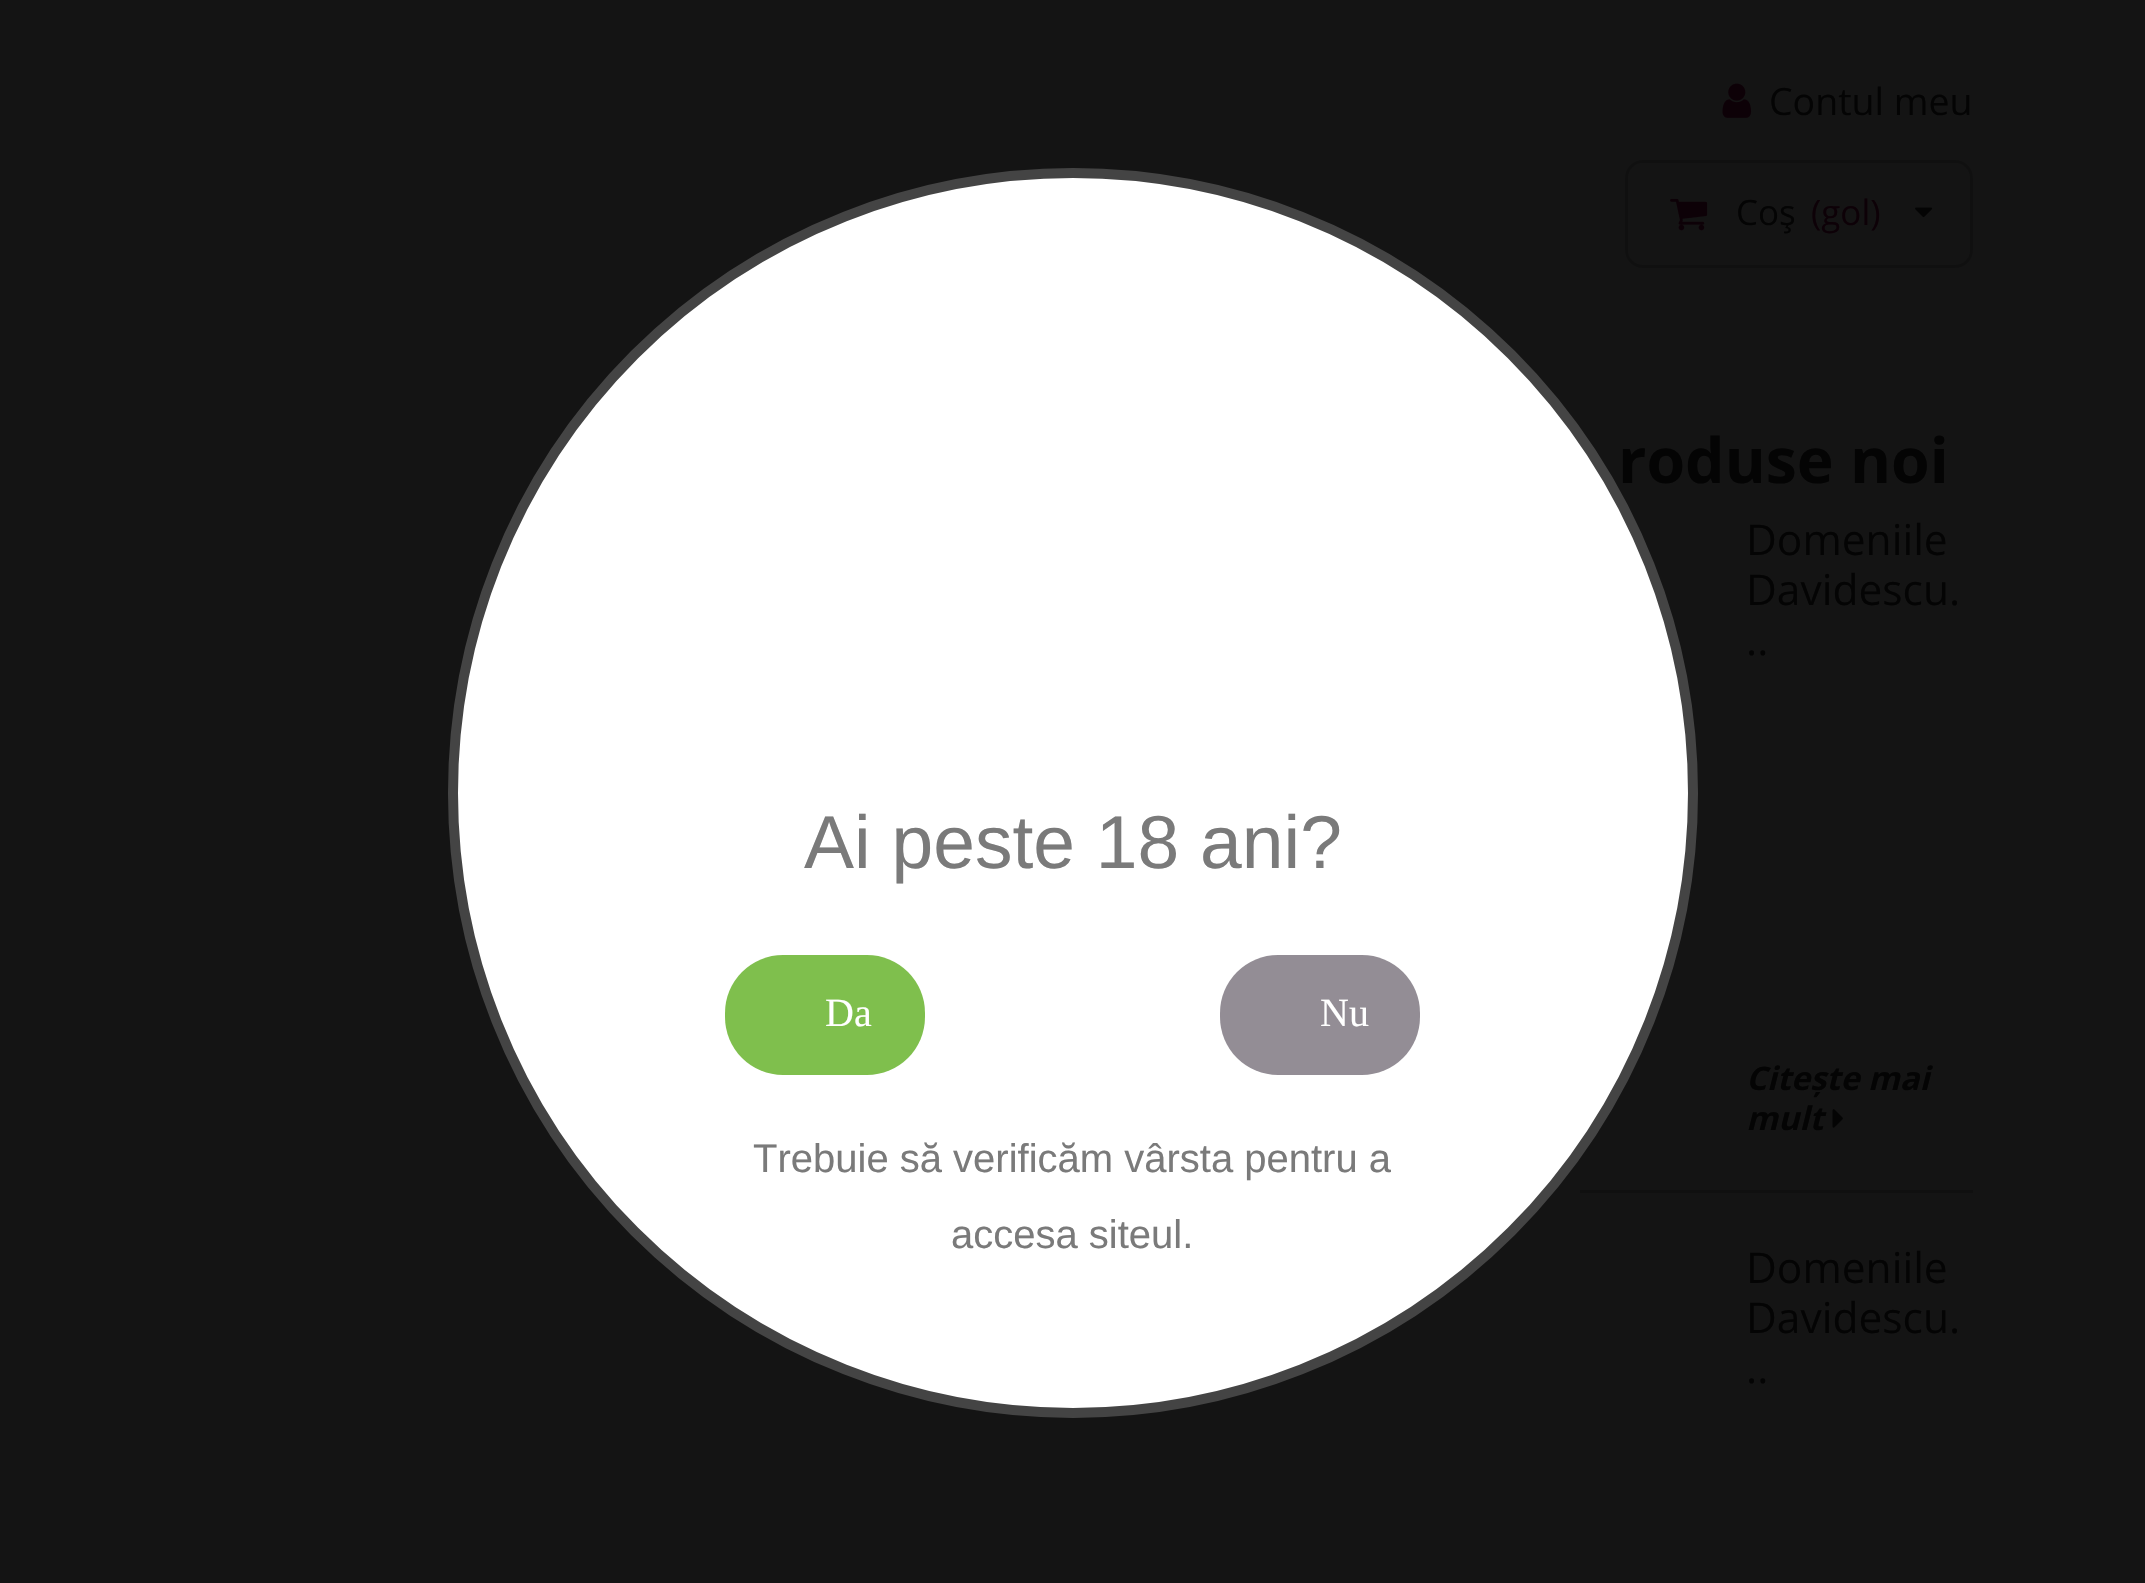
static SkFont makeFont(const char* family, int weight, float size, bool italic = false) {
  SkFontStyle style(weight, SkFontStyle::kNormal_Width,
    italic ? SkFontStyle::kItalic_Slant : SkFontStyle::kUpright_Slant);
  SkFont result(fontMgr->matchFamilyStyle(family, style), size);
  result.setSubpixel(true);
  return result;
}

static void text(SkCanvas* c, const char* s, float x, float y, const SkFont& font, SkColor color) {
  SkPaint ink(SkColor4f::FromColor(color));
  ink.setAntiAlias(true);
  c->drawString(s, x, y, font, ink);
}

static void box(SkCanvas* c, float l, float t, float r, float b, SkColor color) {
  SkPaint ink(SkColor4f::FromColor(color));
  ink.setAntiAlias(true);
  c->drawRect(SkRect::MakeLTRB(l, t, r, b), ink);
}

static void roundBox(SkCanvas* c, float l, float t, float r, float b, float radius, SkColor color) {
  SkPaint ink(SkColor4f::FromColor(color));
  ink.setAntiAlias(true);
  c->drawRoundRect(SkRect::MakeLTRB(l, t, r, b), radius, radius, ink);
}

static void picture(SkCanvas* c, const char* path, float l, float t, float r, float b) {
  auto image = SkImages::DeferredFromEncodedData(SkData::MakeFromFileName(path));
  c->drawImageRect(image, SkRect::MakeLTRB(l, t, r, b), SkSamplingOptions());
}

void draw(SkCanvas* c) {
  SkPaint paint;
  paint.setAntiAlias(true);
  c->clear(0xff141414);
  paint.setStyle(SkPaint::kStroke_Style);
  paint.setStrokeWidth(3);
  paint.setColor(0xff101010);
  c->drawRoundRect(SkRect::MakeLTRB(1626.5f, 161.5f, 1971.5f, 266.5f), 16.5f, 16.5f, paint);
  picture(c, "img_02.png", 1670, 198, 1708, 231);
  SkFont face1 = makeFont("Open Sans", 700, 62.5f);
  text(c, "roduse noi", 1618, 483, face1, 0xff040404);
  box(c, 1580, 1190, 1973, 1193, 0xff101010);
  paint.setStyle(SkPaint::kFill_Style);
  paint.setColor(0xffffffff);
  c->drawCircle(1073, 793, 620, paint);
  paint.setStyle(SkPaint::kStroke_Style);
  paint.setStrokeWidth(10);
  paint.setColor(0xff444444);
  c->drawCircle(1073, 793, 620, paint);
  SkFont face2 = makeFont("Liberation Sans", 400, 75);
  text(c, "Ai peste 18 ani?", 804, 868, face2, 0xff7a7a7a);
  roundBox(c, 725, 955, 925, 1075, 58, 0xff7fbf4d);
  SkFont face3 = makeFont("Liberation Serif", 400, 40);
  text(c, "Da", 825, 1026, face3, 0xffffffff);
  roundBox(c, 1220, 955, 1420, 1075, 58, 0xff938d95);
  text(c, "Nu", 1320, 1026, face3, 0xffffffff);
  SkFont face4 = makeFont("Liberation Sans", 400, 40);
  text(c, "Trebuie să verificăm vârsta pentru a", 753, 1172, face4, 0xff7a7a7a);
  text(c, "accesa siteul.", 951, 1248, face4, 0xff7a7a7a);
  picture(c, "img_01.png", 1722, 83, 1752, 118);
  SkFont face5 = makeFont("Open Sans", 400, 37.5f);
  text(c, "Contul meu", 1769, 115, face5, 0xff040404);
  SkFont face6 = makeFont("Open Sans", 400, 35);
  text(c, "Coş", 1736, 225, face6, 0xff040404);
  text(c, "(gol)", 1811, 225, face6, 0xff0d0107);
  picture(c, "img_03.png", 1915, 207, 1933, 218);
  SkFont face7 = makeFont("Open Sans", 400, 42.5f);
  text(c, "Domeniile", 1746, 555, face7, 0xff040404);
  text(c, "Davidescu.", 1746, 605, face7, 0xff040404);
  text(c, "..", 1746, 655, face7, 0xff040404);
  SkFont face8 = makeFont("Open Sans", 700, 32.5f, true);
  text(c, "Citește mai", 1746, 1090, face8, 0xff040404);
  text(c, "mult", 1746, 1130, face8, 0xff040404);
  picture(c, "img_04.png", 1832, 1109, 1843, 1128);
  text(c, "Domeniile", 1746, 1283, face7, 0xff040404);
  text(c, "Davidescu.", 1746, 1333, face7, 0xff040404);
  text(c, "..", 1746, 1383, face7, 0xff040404);
}
